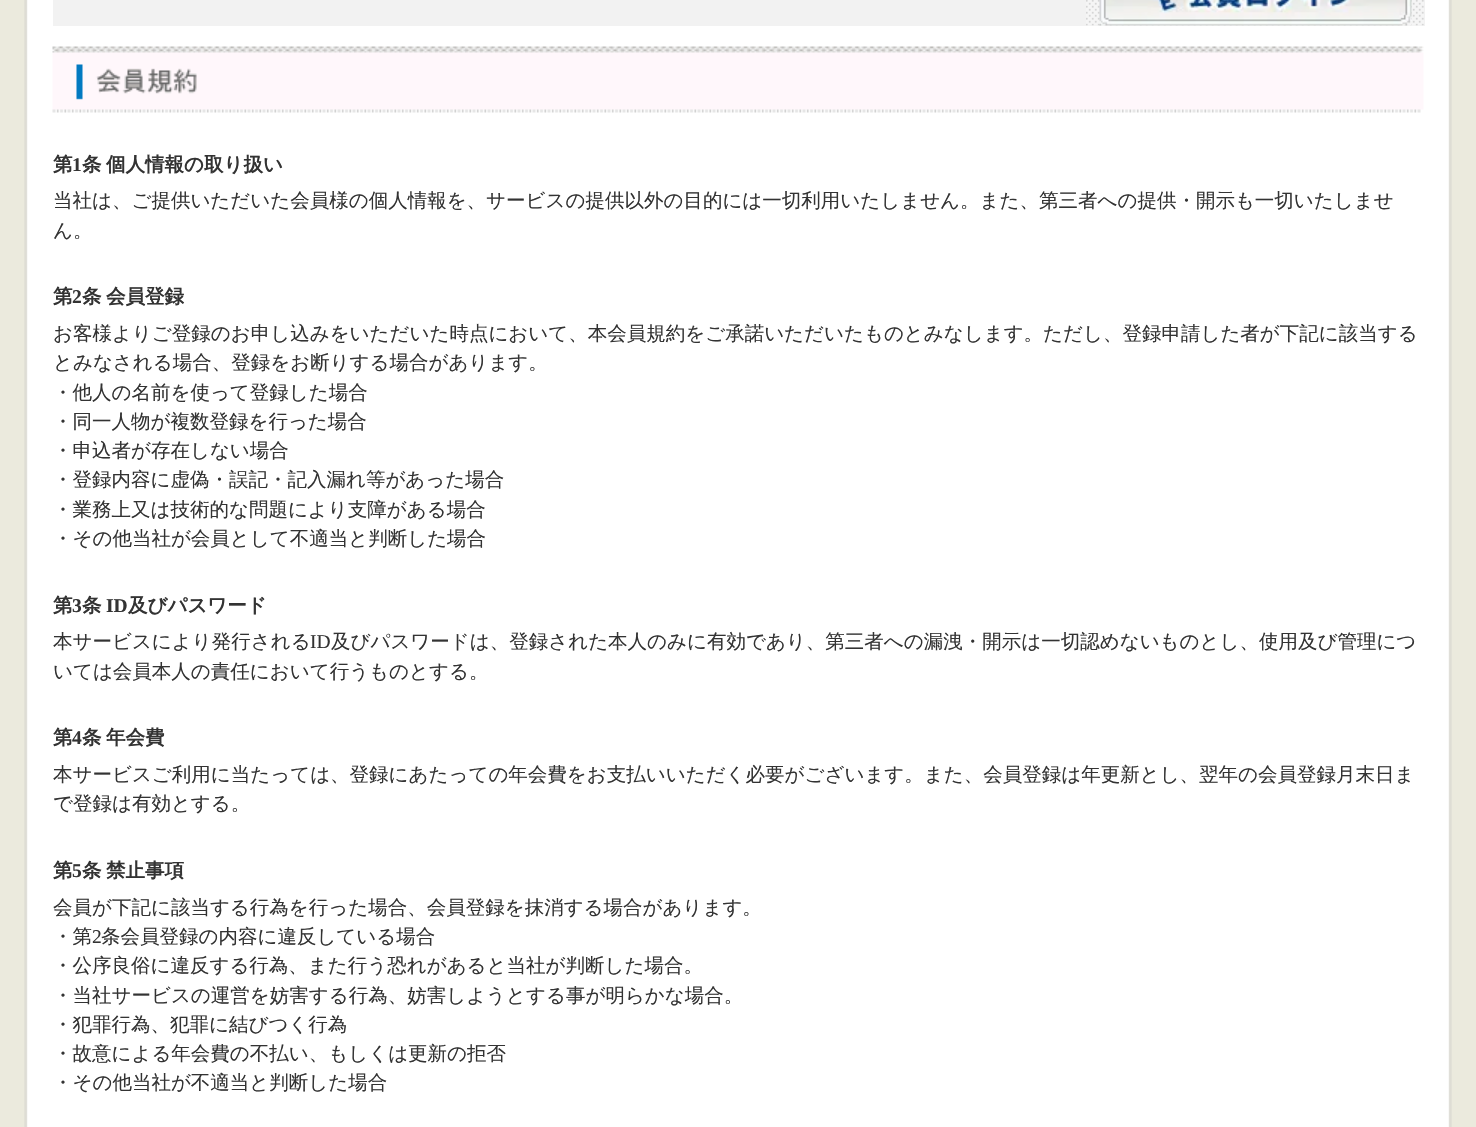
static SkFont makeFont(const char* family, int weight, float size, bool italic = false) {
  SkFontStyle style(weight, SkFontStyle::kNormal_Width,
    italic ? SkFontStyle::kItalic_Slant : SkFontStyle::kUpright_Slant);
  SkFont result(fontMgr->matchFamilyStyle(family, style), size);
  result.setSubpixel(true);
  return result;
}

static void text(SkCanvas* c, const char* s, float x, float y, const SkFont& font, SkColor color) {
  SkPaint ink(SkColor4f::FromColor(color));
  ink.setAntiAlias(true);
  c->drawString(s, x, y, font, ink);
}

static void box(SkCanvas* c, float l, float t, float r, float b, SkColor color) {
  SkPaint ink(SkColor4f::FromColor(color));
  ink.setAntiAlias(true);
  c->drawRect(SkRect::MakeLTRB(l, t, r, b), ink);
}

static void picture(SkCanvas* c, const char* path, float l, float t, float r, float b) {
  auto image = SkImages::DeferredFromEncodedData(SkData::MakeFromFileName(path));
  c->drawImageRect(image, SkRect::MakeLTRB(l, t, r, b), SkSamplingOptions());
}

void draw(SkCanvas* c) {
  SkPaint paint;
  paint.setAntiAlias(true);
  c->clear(0xffebeadd);
  picture(c, "img_01.png", 24, 0, 1452, 1127);
  box(c, 53, 0, 1425, 26, 0xfff2f2f2);
  picture(c, "img_02.png", 1086, 0, 1424, 26);
  picture(c, "img_03.png", 1099, 0, 1412, 26);
  picture(c, "img_04.png", 52, 46, 1424, 113);
  SkFont face1 = makeFont("WenQuanYi Zen Hei", 700, 19.5f);
  text(c, "第", 53, 171, face1, 0xff333333);
  SkFont face2 = makeFont("Liberation Serif", 700, 19.5f);
  text(c, "1", 72, 171, face2, 0xff333333);
  text(c, "条", 82, 171, face1, 0xff333333);
  text(c, "個人情報の取り扱い", 106, 171, face1, 0xff333333);
  SkFont face3 = makeFont("WenQuanYi Zen Hei", 500, 19.5f);
  text(c, "当社は、ご提供いただいた会員様の個人情報を、サービスの提供以外の目的には一切利用いたしません。また、第三者への提供・開示も一切いたしませ", 53, 207, face3, 0xff333333);
  text(c, "ん。", 53, 237, face3, 0xff333333);
  text(c, "第", 53, 303, face1, 0xff333333);
  text(c, "2", 72, 303, face2, 0xff333333);
  text(c, "条", 82, 303, face1, 0xff333333);
  text(c, "会員登録", 106, 303, face1, 0xff333333);
  text(c, "お客様よりご登録のお申し込みをいただいた時点において、本会員規約をご承諾いただいたものとみなします。ただし、登録申請した者が下記に該当する", 53, 340, face3, 0xff333333);
  text(c, "とみなされる場合、登録をお断りする場合があります。", 53, 369, face3, 0xff333333);
  text(c, "・他人の名前を使って登録した場合", 53, 399, face3, 0xff333333);
  text(c, "・同一人物が複数登録を行った場合", 53, 428, face3, 0xff333333);
  text(c, "・申込者が存在しない場合", 53, 457, face3, 0xff333333);
  text(c, "・登録内容に虚偽・誤記・記入漏れ等があった場合", 53, 486, face3, 0xff333333);
  text(c, "・業務上又は技術的な問題により支障がある場合", 53, 516, face3, 0xff333333);
  text(c, "・その他当社が会員として不適当と判断した場合", 53, 545, face3, 0xff333333);
  text(c, "第", 53, 612, face1, 0xff333333);
  text(c, "3", 72, 612, face2, 0xff333333);
  text(c, "条", 82, 612, face1, 0xff333333);
  text(c, "ID", 106, 612, face2, 0xff333333);
  text(c, "及びパスワード", 128, 612, face1, 0xff333333);
  text(c, "本サービスにより発行される", 53, 648, face3, 0xff333333);
  SkFont face4 = makeFont("Liberation Serif", 400, 19.5f);
  text(c, "ID", 310, 648, face4, 0xff333333);
  text(c, "及びパスワードは、登録された本人のみに有効であり、第三者への漏洩・開示は一切認めないものとし、使用及び管理につ", 331, 648, face3, 0xff333333);
  text(c, "いては会員本人の責任において行うものとする。", 53, 678, face3, 0xff333333);
  text(c, "第", 53, 744, face1, 0xff333333);
  text(c, "4", 72, 744, face2, 0xff333333);
  text(c, "条", 82, 744, face1, 0xff333333);
  text(c, "年会費", 106, 744, face1, 0xff333333);
  text(c, "本サービスご利用に当たっては、登録にあたっての年会費をお支払いいただく必要がございます。また、会員登録は年更新とし、翌年の会員登録月末日ま", 53, 781, face3, 0xff333333);
  text(c, "で登録は有効とする。", 53, 810, face3, 0xff333333);
  text(c, "第", 53, 877, face1, 0xff333333);
  text(c, "5", 72, 877, face2, 0xff333333);
  text(c, "条", 82, 877, face1, 0xff333333);
  text(c, "禁止事項", 106, 877, face1, 0xff333333);
  text(c, "会員が下記に該当する行為を行った場合、会員登録を抹消する場合があります。", 53, 914, face3, 0xff333333);
  text(c, "・第", 53, 943, face3, 0xff333333);
  text(c, "2", 92, 943, face4, 0xff333333);
  text(c, "条会員登録の内容に違反している場合", 101, 943, face3, 0xff333333);
  text(c, "・公序良俗に違反する行為、また行う恐れがあると当社が判断した場合。", 53, 972, face3, 0xff333333);
  text(c, "・当社サービスの運営を妨害する行為、妨害しようとする事が明らかな場合。", 53, 1002, face3, 0xff333333);
  text(c, "・犯罪行為、犯罪に結びつく行為", 53, 1031, face3, 0xff333333);
  text(c, "・故意による年会費の不払い、もしくは更新の拒否", 53, 1060, face3, 0xff333333);
  text(c, "・その他当社が不適当と判断した場合", 53, 1089, face3, 0xff333333);
}
